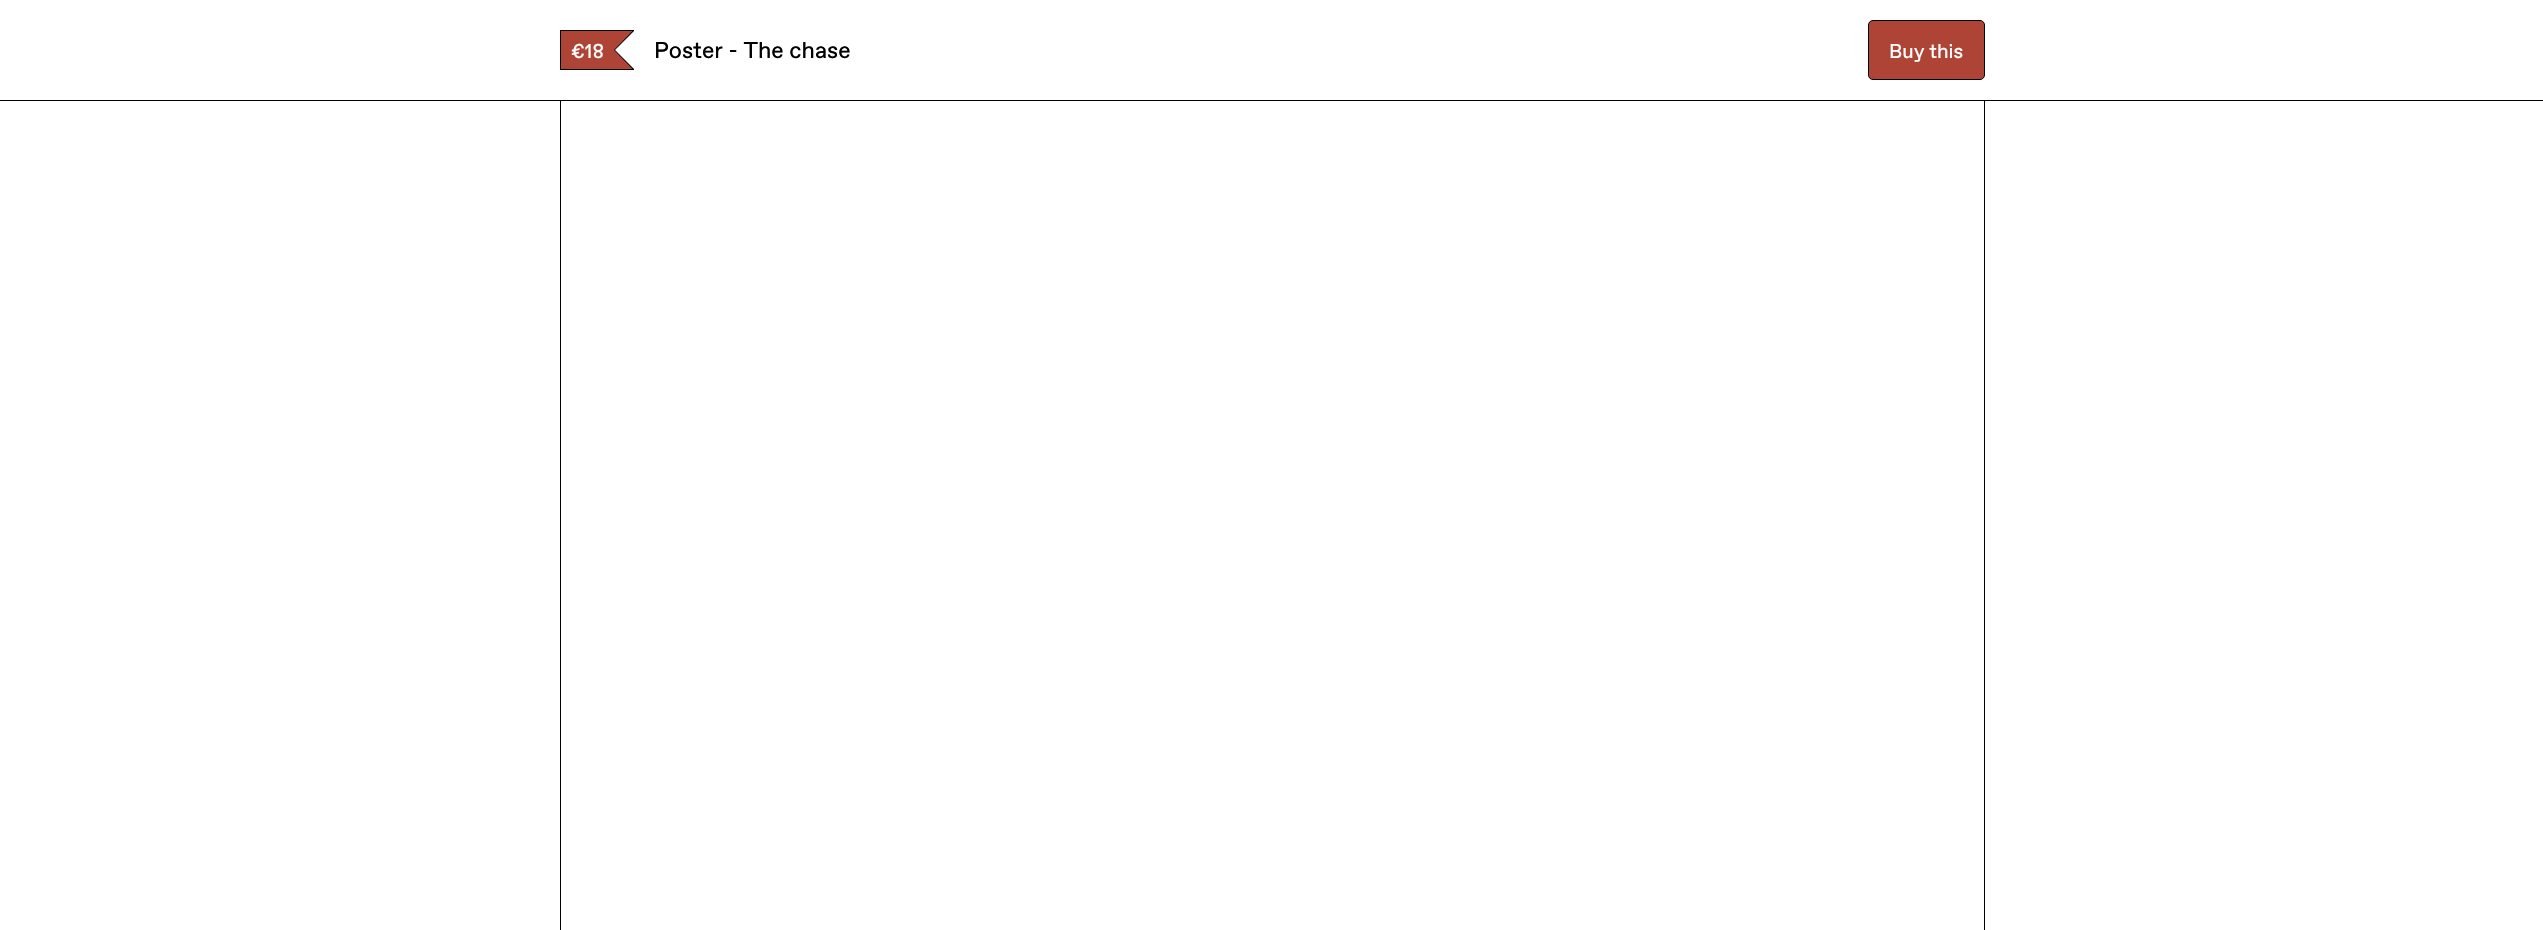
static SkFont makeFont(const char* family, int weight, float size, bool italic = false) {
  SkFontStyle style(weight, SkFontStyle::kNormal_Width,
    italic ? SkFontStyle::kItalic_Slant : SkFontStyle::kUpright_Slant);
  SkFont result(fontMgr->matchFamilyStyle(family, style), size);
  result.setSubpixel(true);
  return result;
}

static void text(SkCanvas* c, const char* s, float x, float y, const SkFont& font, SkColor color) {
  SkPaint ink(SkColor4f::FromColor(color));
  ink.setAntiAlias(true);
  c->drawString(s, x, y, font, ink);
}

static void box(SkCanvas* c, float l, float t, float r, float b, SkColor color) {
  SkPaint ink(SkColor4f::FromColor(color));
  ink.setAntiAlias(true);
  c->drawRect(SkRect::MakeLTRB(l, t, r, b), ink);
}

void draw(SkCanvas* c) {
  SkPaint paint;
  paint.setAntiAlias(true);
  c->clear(0xffffffff);
  paint.setStyle(SkPaint::kStroke_Style);
  paint.setStrokeWidth(1);
  paint.setColor(0xff000000);
  c->drawRect(SkRect::MakeLTRB(560.5f, 80.5f, 1984.5f, 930.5f), paint);
  paint.setStyle(SkPaint::kFill_Style);
  c->drawPath(SkPathBuilder().moveTo(0, 100).lineTo(0, 101).lineTo(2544, 101).lineTo(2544, 1).lineTo(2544, 100).close().detach(), paint);
  box(c, 560, 80, 1985, 100, 0xffffffff);
  box(c, 560, 30, 634, 31, 0xff000000);
  box(c, 560, 69, 634, 70, 0xff000000);
  box(c, 560, 30, 561, 70, 0xff000000);
  box(c, 561, 31, 614, 69, 0xffae4436);
  c->drawPath(SkPathBuilder().moveTo(614, 31).lineTo(634, 31).lineTo(615, 50).close().moveTo(634, 69).lineTo(614, 69).lineTo(615, 50).close().detach(), paint);
  box(c, 614, 49, 615, 51, 0xff000000);
  paint.setColor(0xffae4436);
  c->drawPath(SkPathBuilder().moveTo(612.5f, 31).lineTo(632.5f, 31).lineTo(614, 50).close().moveTo(632.5f, 69).lineTo(612.5f, 69).lineTo(614, 50).close().detach(), paint);
  SkFont face1 = makeFont("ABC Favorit", 400, 20);
  text(c, "€18", 571, 58, face1, 0xffffffff);
  SkFont face2 = makeFont("ABC Favorit", 400, 23);
  text(c, "Poster - The chase", 654, 58, face2, 0xff000000);
  c->drawRoundRect(SkRect::MakeLTRB(1868.5f, 20.5f, 1984.5f, 79.5f), 4.5f, 4.5f, paint);
  paint.setStyle(SkPaint::kStroke_Style);
  paint.setColor(0xff000000);
  c->drawRoundRect(SkRect::MakeLTRB(1868.5f, 20.5f, 1984.5f, 79.5f), 4.5f, 4.5f, paint);
  text(c, "Buy this", 1889, 58, face1, 0xffffffff);
}
